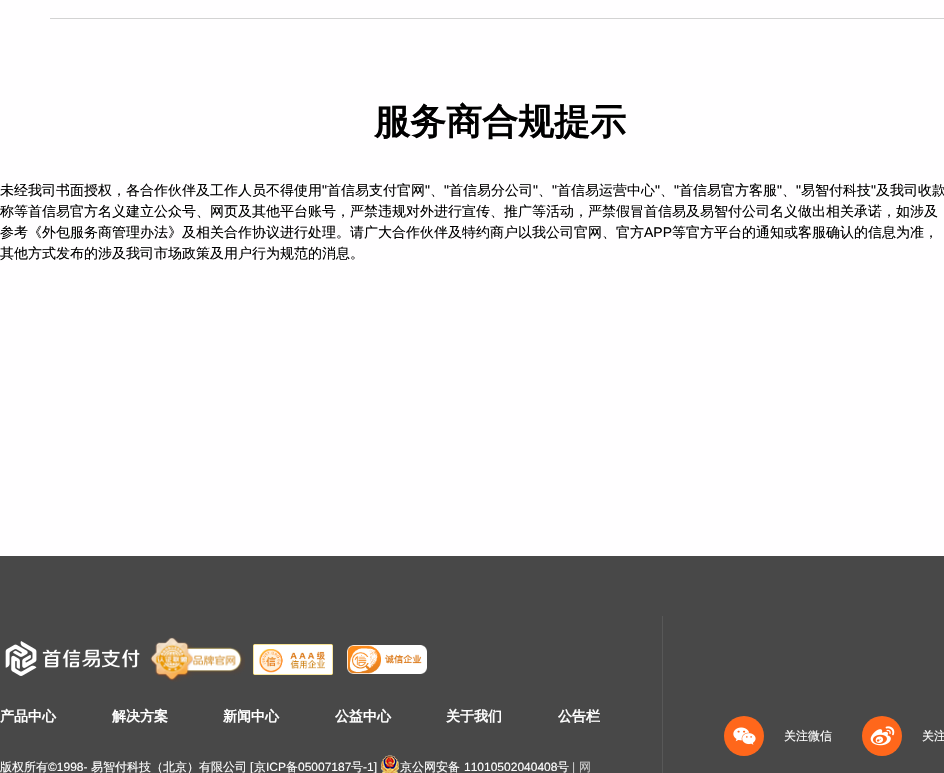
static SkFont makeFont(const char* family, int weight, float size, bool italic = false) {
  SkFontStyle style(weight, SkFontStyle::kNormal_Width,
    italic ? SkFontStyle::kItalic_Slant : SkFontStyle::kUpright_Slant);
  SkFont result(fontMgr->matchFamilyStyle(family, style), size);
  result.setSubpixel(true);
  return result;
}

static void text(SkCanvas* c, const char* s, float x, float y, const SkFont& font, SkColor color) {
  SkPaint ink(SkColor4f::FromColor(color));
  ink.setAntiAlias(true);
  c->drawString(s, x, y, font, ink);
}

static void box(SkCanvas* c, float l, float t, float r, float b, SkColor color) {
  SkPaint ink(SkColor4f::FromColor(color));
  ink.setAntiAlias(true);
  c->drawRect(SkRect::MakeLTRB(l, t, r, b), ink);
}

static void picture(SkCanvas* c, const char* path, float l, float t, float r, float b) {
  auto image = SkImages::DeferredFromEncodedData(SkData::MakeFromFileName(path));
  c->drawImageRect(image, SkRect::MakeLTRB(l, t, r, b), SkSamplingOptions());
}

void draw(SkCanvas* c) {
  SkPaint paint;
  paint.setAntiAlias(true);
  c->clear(0xff484848);
  box(c, 0, 0, 944, 556, 0xfffffeff);
  box(c, 50, 18, 944, 19, 0xffd3d3d3);
  SkFont face1 = makeFont("WenQuanYi Zen Hei", 700, 36);
  text(c, "服务商合规提示", 374, 134, face1, 0xff000000);
  SkFont face2 = makeFont("WenQuanYi Zen Hei", 500, 14);
  text(c, "未经我司书面授权，各合作伙伴及工作人员不得使用", 0, 195, face2, 0xff000000);
  SkFont face3 = makeFont("Liberation Sans", 400, 14);
  text(c, "\"", 322, 195, face3, 0xff000000);
  text(c, "首信易支付官网", 327, 195, face2, 0xff000000);
  text(c, "\"", 425, 195, face3, 0xff000000);
  text(c, "\"", 444, 195, face3, 0xff000000);
  text(c, "首信易分公司", 449, 195, face2, 0xff000000);
  text(c, "\"", 533, 195, face3, 0xff000000);
  text(c, "\"", 552, 195, face3, 0xff000000);
  text(c, "首信易运营中心", 557, 195, face2, 0xff000000);
  text(c, "\"", 655, 195, face3, 0xff000000);
  text(c, "\"", 674, 195, face3, 0xff000000);
  text(c, "首信易官方客服", 679, 195, face2, 0xff000000);
  text(c, "\"", 777, 195, face3, 0xff000000);
  text(c, "\"", 796, 195, face3, 0xff000000);
  text(c, "易智付科技", 801, 195, face2, 0xff000000);
  text(c, "\"", 871, 195, face3, 0xff000000);
  text(c, "及我司收款", 876, 195, face2, 0xff000000);
  text(c, "、", 430, 195, face2, 0xff000000);
  text(c, "、", 538, 195, face2, 0xff000000);
  text(c, "、", 660, 195, face2, 0xff000000);
  text(c, "、", 782, 195, face2, 0xff000000);
  text(c, "称等首信易官方名义建立公众号、网页及其他平台账号，严禁违规对外进行宣传、推广等活动，严禁假冒首信易及易智付公司名义做出相关承诺，如涉及", 0, 216, face2, 0xff000000);
  text(c, "参考《外包服务商管理办法》及相关合作协议进行处理。请广大合作伙伴及特约商户以我公司官网、官方", 0, 237, face2, 0xff000000);
  text(c, "APP", 644, 237, face3, 0xff000000);
  text(c, "等官方平台的通知或客服确认的信息为准，", 672, 237, face2, 0xff000000);
  text(c, "其他方式发布的涉及我司市场政策及用户行为规范的消息。", 0, 258, face2, 0xff000000);
  picture(c, "img_01.png", 5, 641, 140, 676);
  picture(c, "img_02.png", 150, 637, 245, 682);
  picture(c, "img_03.png", 253, 644, 333, 675);
  picture(c, "img_04.png", 347, 645, 427, 674);
  SkFont face4 = makeFont("WenQuanYi Zen Hei", 700, 14);
  text(c, "产品中心", 0, 721, face4, 0xffffffff);
  text(c, "解决方案", 112, 721, face4, 0xffffffff);
  text(c, "新闻中心", 223, 721, face4, 0xffffffff);
  text(c, "公益中心", 335, 721, face4, 0xffffffff);
  text(c, "关于我们", 446, 721, face4, 0xffffffff);
  text(c, "公告栏", 558, 721, face4, 0xffffffff);
  SkFont face5 = makeFont("WenQuanYi Zen Hei", 500, 12);
  text(c, "版权所有", 0, 771, face5, 0xffffffff);
  SkFont face6 = makeFont("Liberation Sans", 400, 12);
  text(c, "©1998-", 48, 771, face6, 0xffffffff);
  text(c, "易智付科技（北京）有限公司", 91, 771, face5, 0xffffffff);
  text(c, "[", 250, 771, face6, 0xffffffff);
  text(c, "京", 254, 771, face5, 0xffffffff);
  text(c, "ICP", 266, 771, face6, 0xffffffff);
  text(c, "备", 286, 771, face5, 0xffffffff);
  text(c, "05007187", 298, 771, face6, 0xffffffff);
  text(c, "号", 351, 771, face5, 0xffffffff);
  text(c, "-1]", 363, 771, face6, 0xffffffff);
  picture(c, "img_05.png", 381, 755, 399, 773);
  text(c, "京公网安备", 400, 771, face5, 0xffffffff);
  text(c, "11010502040408", 464, 771, face6, 0xffffffff);
  text(c, "号", 557, 771, face5, 0xffffffff);
  text(c, "|", 572, 771, face6, 0xffcccccc);
  text(c, "网", 579, 771, face5, 0xffcccccc);
  box(c, 662, 616, 663, 773, 0xff585858);
  paint.setColor(0xffff671b);
  c->drawCircle(744, 736, 20, paint);
  picture(c, "img_06.png", 733, 727, 756, 745);
  text(c, "关注微信", 784, 740, face5, 0xffffffff);
  c->drawCircle(882, 736, 20, paint);
  picture(c, "img_07.png", 870, 726, 895, 746);
  text(c, "关注", 922, 740, face5, 0xffffffff);
}
